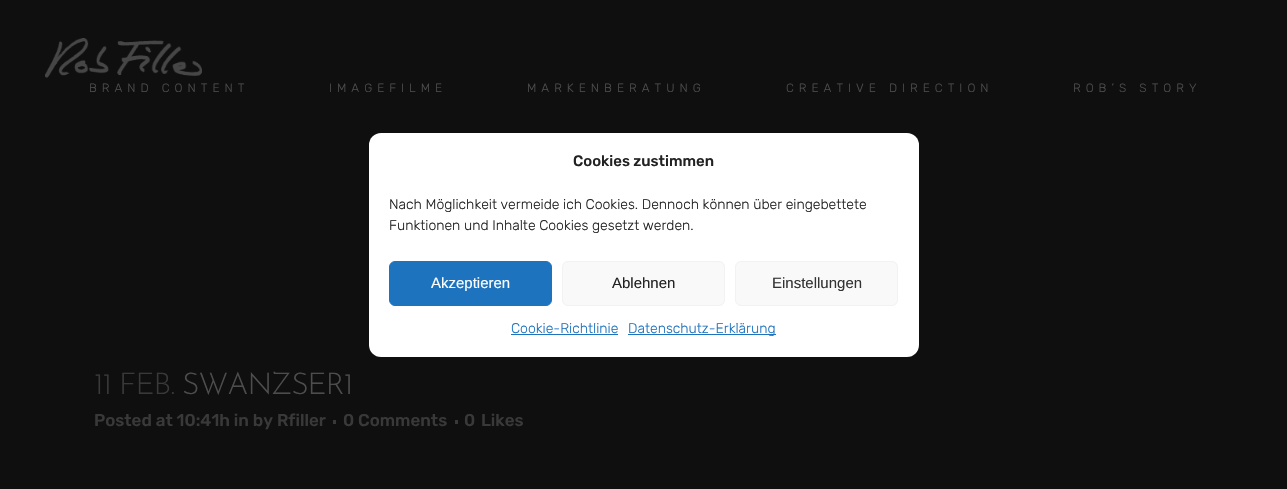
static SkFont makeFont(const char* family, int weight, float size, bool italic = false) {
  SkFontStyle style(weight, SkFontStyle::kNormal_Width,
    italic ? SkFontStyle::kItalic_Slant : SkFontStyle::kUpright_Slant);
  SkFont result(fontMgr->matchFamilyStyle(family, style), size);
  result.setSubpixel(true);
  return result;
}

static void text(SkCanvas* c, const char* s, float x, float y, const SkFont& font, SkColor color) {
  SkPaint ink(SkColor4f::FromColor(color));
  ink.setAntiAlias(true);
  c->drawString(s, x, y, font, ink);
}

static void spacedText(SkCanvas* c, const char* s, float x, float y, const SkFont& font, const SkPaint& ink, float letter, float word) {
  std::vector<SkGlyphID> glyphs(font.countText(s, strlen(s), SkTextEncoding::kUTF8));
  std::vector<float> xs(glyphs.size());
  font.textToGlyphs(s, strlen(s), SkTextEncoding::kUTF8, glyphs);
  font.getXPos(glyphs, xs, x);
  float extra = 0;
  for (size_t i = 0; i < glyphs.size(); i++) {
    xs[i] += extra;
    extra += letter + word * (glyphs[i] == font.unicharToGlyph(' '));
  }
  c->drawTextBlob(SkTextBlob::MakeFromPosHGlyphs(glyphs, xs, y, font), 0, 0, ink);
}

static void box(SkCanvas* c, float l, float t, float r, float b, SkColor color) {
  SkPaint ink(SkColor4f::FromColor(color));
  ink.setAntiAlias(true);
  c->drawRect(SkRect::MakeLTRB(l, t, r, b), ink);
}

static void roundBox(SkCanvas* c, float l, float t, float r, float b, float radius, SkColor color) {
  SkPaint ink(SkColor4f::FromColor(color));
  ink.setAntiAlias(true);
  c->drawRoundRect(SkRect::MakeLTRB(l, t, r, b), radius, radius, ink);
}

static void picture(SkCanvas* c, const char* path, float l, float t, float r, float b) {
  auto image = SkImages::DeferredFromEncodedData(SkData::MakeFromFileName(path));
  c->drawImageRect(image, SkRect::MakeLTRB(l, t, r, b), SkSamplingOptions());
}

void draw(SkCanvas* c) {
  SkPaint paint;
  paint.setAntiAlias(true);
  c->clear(0xff0f0f0f);
  picture(c, "img_01.png", 45, 38, 202, 78);
  SkFont face1 = makeFont("Rubik", 300, 12);
  paint.setColor(0xff4d4d4d);
  spacedText(c, "BRAND CONTENT", 89, 92, face1, paint, 5, 0);
  spacedText(c, "IMAGEFILME", 329, 92, face1, paint, 5, 0);
  spacedText(c, "MARKENBERATUNG", 527, 92, face1, paint, 5, 0);
  spacedText(c, "CREATIVE DIRECTION", 786, 92, face1, paint, 5, 0);
  spacedText(c, "ROB’S STORY", 1073, 92, face1, paint, 5, 0);
  SkFont face2 = makeFont("Josefin Sans", 300, 30);
  paint.setColor(0xff393939);
  spacedText(c, "11 FEB.", 94, 394, face2, paint, -1, 0);
  paint.setColor(0xff4d4d4d);
  spacedText(c, "SWANZSER1", 182, 394, face2, paint, -1, 0);
  SkFont face3 = makeFont("Rubik", 500, 17);
  text(c, "Posted at 10:41h in by Rfiller", 94, 426, face3, 0xff393939);
  box(c, 333, 420, 336, 424, 0xff393939);
  text(c, "0 Comments", 343, 426, face3, 0xff393939);
  box(c, 455, 420, 458, 424, 0xff393939);
  text(c, "0", 464, 426, face3, 0xff393939);
  text(c, "Likes", 481, 426, face3, 0xff393939);
  roundBox(c, 369, 133, 919, 357, 12, 0xffffffff);
  SkFont face4 = makeFont("Rubik", 500, 15);
  text(c, "Cookies zustimmen", 573, 166, face4, 0xff222222);
  SkFont face5 = makeFont("Rubik", 300, 14);
  text(c, "Nach Möglichkeit vermeide ich Cookies. Dennoch können über eingebettete", 389, 209, face5, 0xff222222);
  text(c, "Funktionen und Inhalte Cookies gesetzt werden.", 389, 230, face5, 0xff222222);
  paint.setColor(0xff1e73be);
  c->drawRoundRect(SkRect::MakeLTRB(389.5f, 261.5f, 551.5f, 305.5f), 5.5f, 5.5f, paint);
  paint.setStyle(SkPaint::kStroke_Style);
  paint.setStrokeWidth(1);
  c->drawRoundRect(SkRect::MakeLTRB(389.5f, 261.5f, 551.5f, 305.5f), 5.5f, 5.5f, paint);
  SkFont face6 = makeFont("Liberation Sans", 400, 15);
  text(c, "Akzeptieren", 431, 288, face6, 0xffffffff);
  paint.setStyle(SkPaint::kFill_Style);
  paint.setColor(0xfff9f9f9);
  c->drawRoundRect(SkRect::MakeLTRB(562.5f, 261.5f, 724.5f, 305.5f), 5.5f, 5.5f, paint);
  paint.setStyle(SkPaint::kStroke_Style);
  paint.setColor(0xfff2f2f2);
  c->drawRoundRect(SkRect::MakeLTRB(562.5f, 261.5f, 724.5f, 305.5f), 5.5f, 5.5f, paint);
  text(c, "Ablehnen", 612, 288, face6, 0xff222222);
  paint.setStyle(SkPaint::kFill_Style);
  paint.setColor(0xfff9f9f9);
  c->drawRoundRect(SkRect::MakeLTRB(735.5f, 261.5f, 897.5f, 305.5f), 5.5f, 5.5f, paint);
  paint.setStyle(SkPaint::kStroke_Style);
  paint.setColor(0xfff2f2f2);
  c->drawRoundRect(SkRect::MakeLTRB(735.5f, 261.5f, 897.5f, 305.5f), 5.5f, 5.5f, paint);
  text(c, "Einstellungen", 772, 288, face6, 0xff333333);
  text(c, "Cookie-Richtlinie", 511, 333, face5, 0xff1e73be);
  box(c, 511, 334, 618, 335, 0xff1e73be);
  box(c, 628, 334, 776, 335, 0xff1e73be);
  text(c, "Datenschutz-Erklärung", 628, 333, face5, 0xff1e73be);
}
